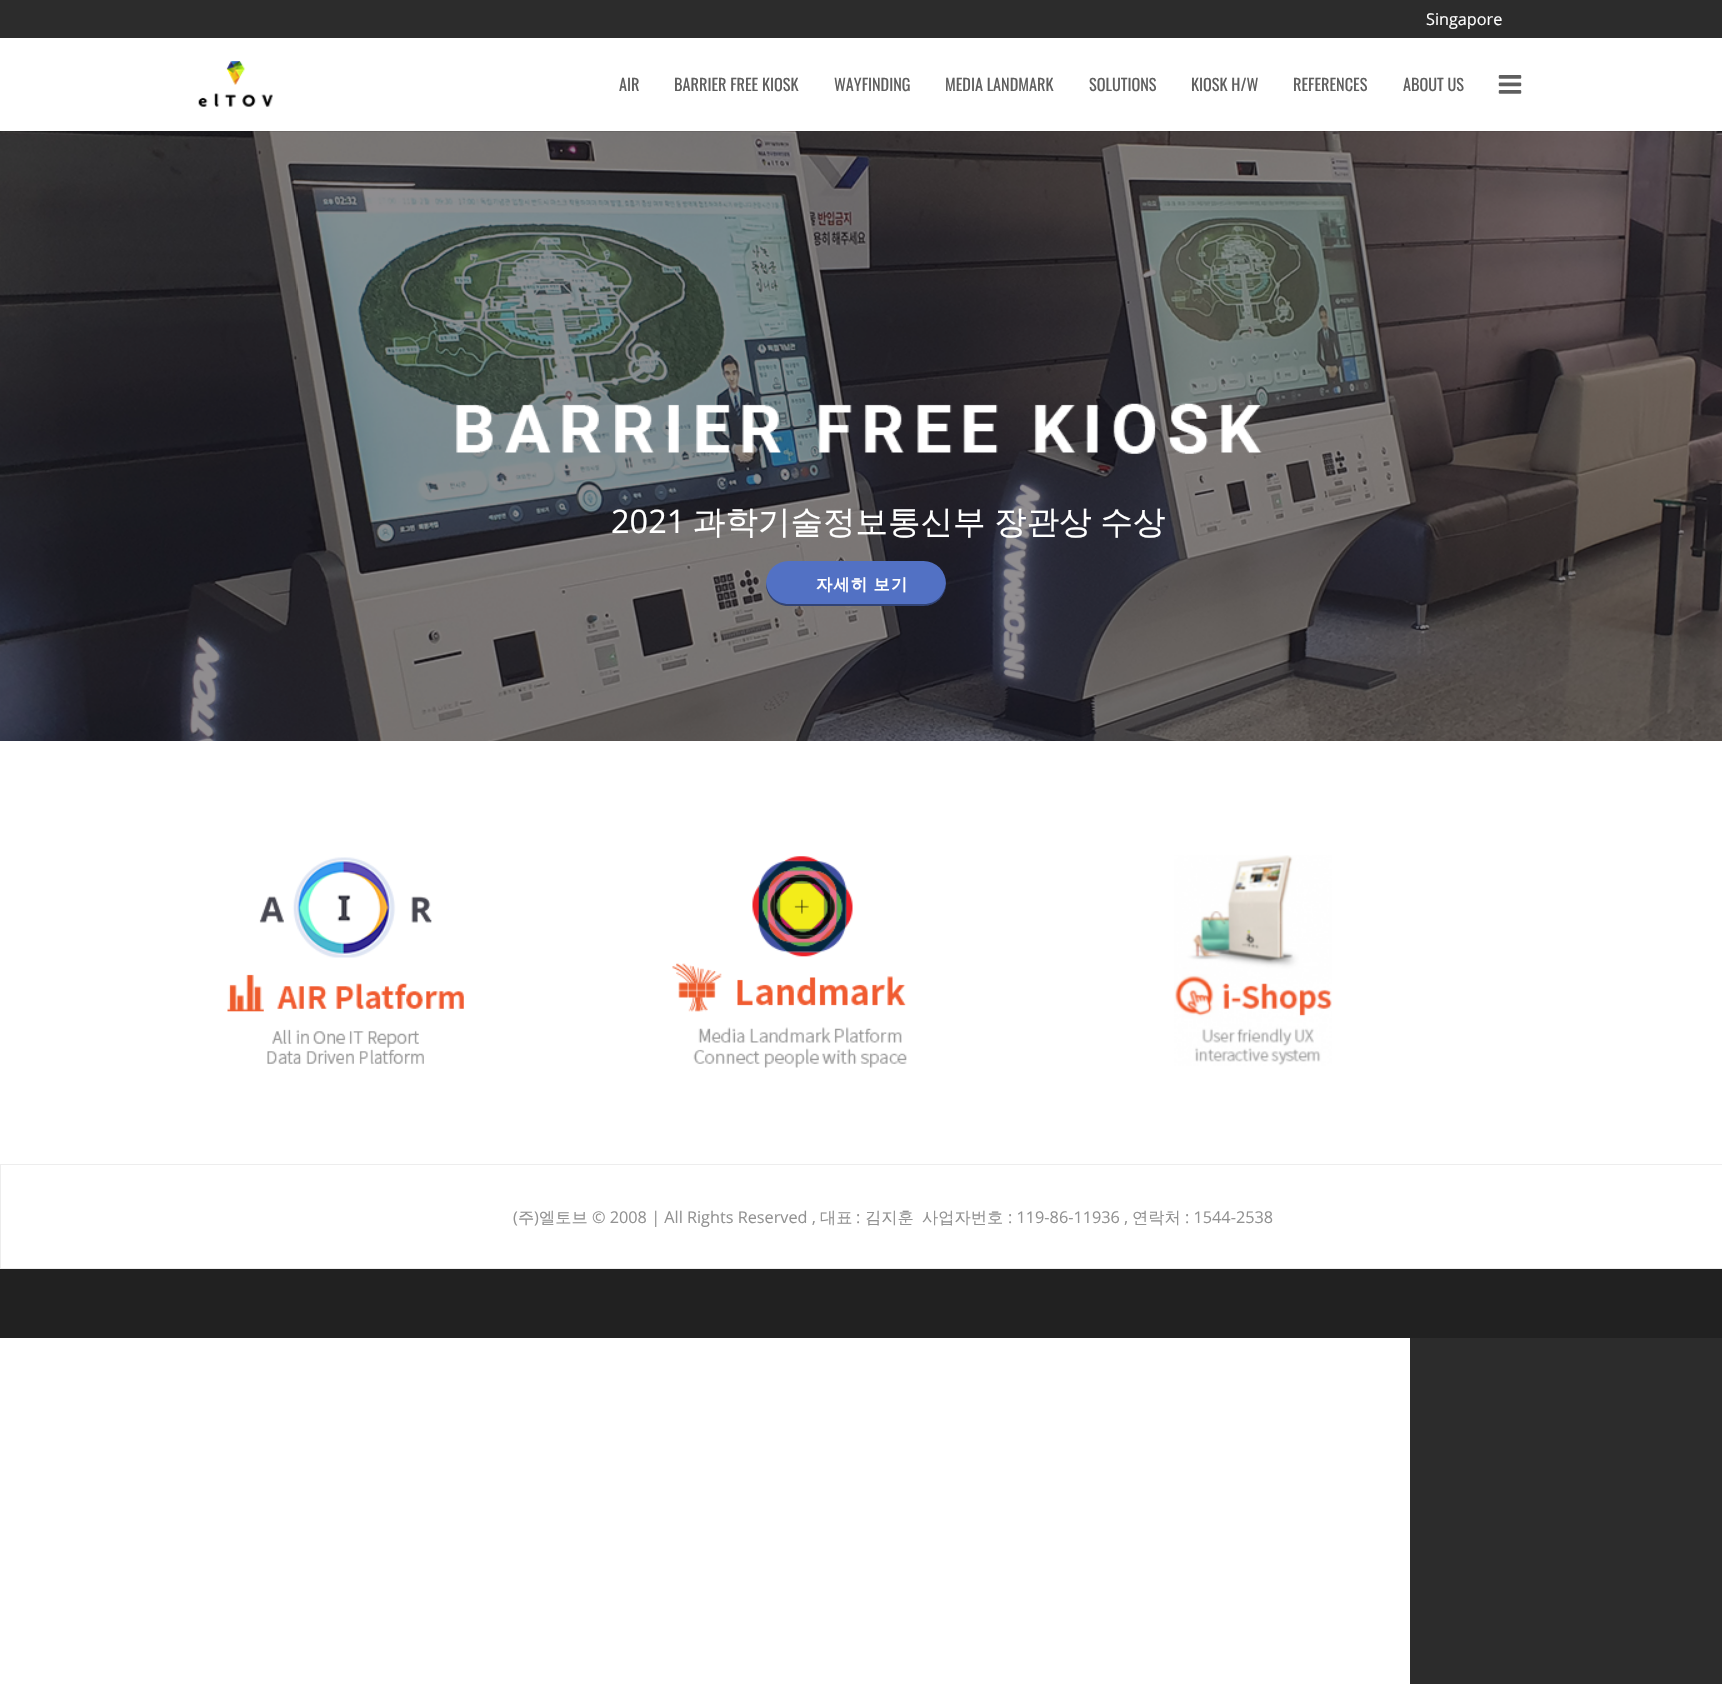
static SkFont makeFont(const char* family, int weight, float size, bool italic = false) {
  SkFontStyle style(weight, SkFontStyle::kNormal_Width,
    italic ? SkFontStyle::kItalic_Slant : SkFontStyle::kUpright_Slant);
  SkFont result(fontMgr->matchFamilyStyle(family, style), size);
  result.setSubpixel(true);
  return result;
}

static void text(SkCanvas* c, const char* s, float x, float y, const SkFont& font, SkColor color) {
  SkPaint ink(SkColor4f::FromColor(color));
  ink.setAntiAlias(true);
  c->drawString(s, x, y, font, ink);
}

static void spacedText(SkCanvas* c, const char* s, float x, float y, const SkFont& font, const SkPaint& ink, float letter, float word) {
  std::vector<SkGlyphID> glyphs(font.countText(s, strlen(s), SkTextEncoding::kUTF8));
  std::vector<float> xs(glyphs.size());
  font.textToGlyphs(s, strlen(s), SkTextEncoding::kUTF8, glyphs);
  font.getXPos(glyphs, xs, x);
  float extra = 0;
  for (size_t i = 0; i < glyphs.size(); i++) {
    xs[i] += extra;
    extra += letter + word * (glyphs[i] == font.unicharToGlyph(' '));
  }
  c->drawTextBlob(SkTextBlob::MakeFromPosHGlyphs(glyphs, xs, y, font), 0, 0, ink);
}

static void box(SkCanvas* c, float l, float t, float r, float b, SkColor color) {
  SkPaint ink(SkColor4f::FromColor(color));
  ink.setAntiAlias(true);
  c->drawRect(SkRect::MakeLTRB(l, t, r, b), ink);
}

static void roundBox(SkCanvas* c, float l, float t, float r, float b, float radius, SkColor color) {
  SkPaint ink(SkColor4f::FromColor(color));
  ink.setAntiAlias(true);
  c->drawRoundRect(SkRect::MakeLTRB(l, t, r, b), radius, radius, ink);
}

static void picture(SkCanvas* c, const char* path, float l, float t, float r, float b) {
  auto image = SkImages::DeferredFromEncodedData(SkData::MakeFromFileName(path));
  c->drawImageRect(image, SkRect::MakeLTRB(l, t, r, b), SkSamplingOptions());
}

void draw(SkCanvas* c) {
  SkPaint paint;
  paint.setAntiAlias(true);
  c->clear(0xffffffff);
  picture(c, "img_03.png", 0, 131, 1722, 741);
  box(c, 0, 131, 1722, 132, 0x1a000000);
  box(c, 0, 0, 1722, 38, 0xff2c2c2c);
  SkFont face1 = makeFont("Open Sans", 400, 16.25f);
  text(c, "Singapore", 1426, 25, face1, 0xffffffff);
  picture(c, "img_01.png", 198, 61, 273, 107);
  SkFont face2 = makeFont("Oswald", 400, 16.25f);
  text(c, "AIR", 619, 91, face2, 0xff5f5f5f);
  text(c, "BARRIER FREE KIOSK", 674, 91, face2, 0xff5f5f5f);
  text(c, "WAYFINDING", 834, 91, face2, 0xff5f5f5f);
  text(c, "MEDIA LANDMARK", 945, 91, face2, 0xff5f5f5f);
  text(c, "SOLUTIONS", 1089, 91, face2, 0xff5f5f5f);
  text(c, "KIOSK H/W", 1191, 91, face2, 0xff5f5f5f);
  text(c, "REFERENCES", 1293, 91, face2, 0xff5f5f5f);
  text(c, "ABOUT US", 1403, 91, face2, 0xff5f5f5f);
  picture(c, "img_02.png", 1498, 75, 1522, 94);
  SkFont face3 = makeFont("Open Sans", 400, 32.5f);
  text(c, "2021", 611, 533, face3, 0xffffffff);
  SkFont face4 = makeFont("WenQuanYi Zen Hei", 500, 32.5f);
  paint.setColor(0xffffffff);
  spacedText(c, "과학기술정보통신부 장관상 수상", 693, 533, face4, paint, 0, -1);
  roundBox(c, 766, 561, 946, 606, 22.5f, 0xff5271c4);
  paint.setColor(0x66000000);
  c->drawPath(SkPathBuilder().moveTo(766, 582).lineTo(766, 584).cubicTo(766, 596, 776, 606, 788, 606).lineTo(924, 606).cubicTo(936, 606, 946, 596, 946, 584).lineTo(946, 582).cubicTo(945, 595, 936, 604, 924, 604).lineTo(789, 604).cubicTo(776, 604, 767, 595, 766, 582).close().detach(), paint);
  SkFont face5 = makeFont("WenQuanYi Zen Hei", 700, 16.25f);
  paint.setColor(0xffffffff);
  spacedText(c, "자세히 보기", 816, 590, face5, paint, 1.25f, -1);
  picture(c, "img_04.png", 227, 857, 464, 1064);
  picture(c, "img_05.png", 672, 856, 907, 1068);
  picture(c, "img_06.png", 1174, 855, 1332, 1066);
  paint.setStyle(SkPaint::kStroke_Style);
  paint.setStrokeWidth(1);
  paint.setColor(0xffededed);
  c->drawRect(SkRect::MakeLTRB(0.5f, 1164.5f, 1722.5f, 1268.5f), paint);
  text(c, "(", 513, 1223, face1, 0xff929292);
  SkFont face6 = makeFont("WenQuanYi Zen Hei", 500, 16.25f);
  text(c, "주 엘토브", 518, 1223, face6, 0xff929292);
  text(c, "© 2008 | All Rights Reserved ,", 592, 1223, face1, 0xff929292);
  text(c, "대표", 820, 1223, face6, 0xff929292);
  text(c, "김지훈", 865, 1223, face6, 0xff929292);
  text(c, "사업자번호", 922, 1223, face6, 0xff929292);
  text(c, "연락처", 1132, 1223, face6, 0xff929292);
  text(c, ")", 534, 1223, face1, 0xff929292);
  text(c, ":", 856, 1223, face1, 0xff929292);
  text(c, ": 119-86-11936 ,", 1008, 1223, face1, 0xff929292);
  text(c, ": 1544-2538", 1185, 1223, face1, 0xff929292);
  box(c, 0, 1269, 1722, 1338, 0xff212121);
  box(c, 1410, 1338, 1722, 1684, 0xff2c2c2c);
}
